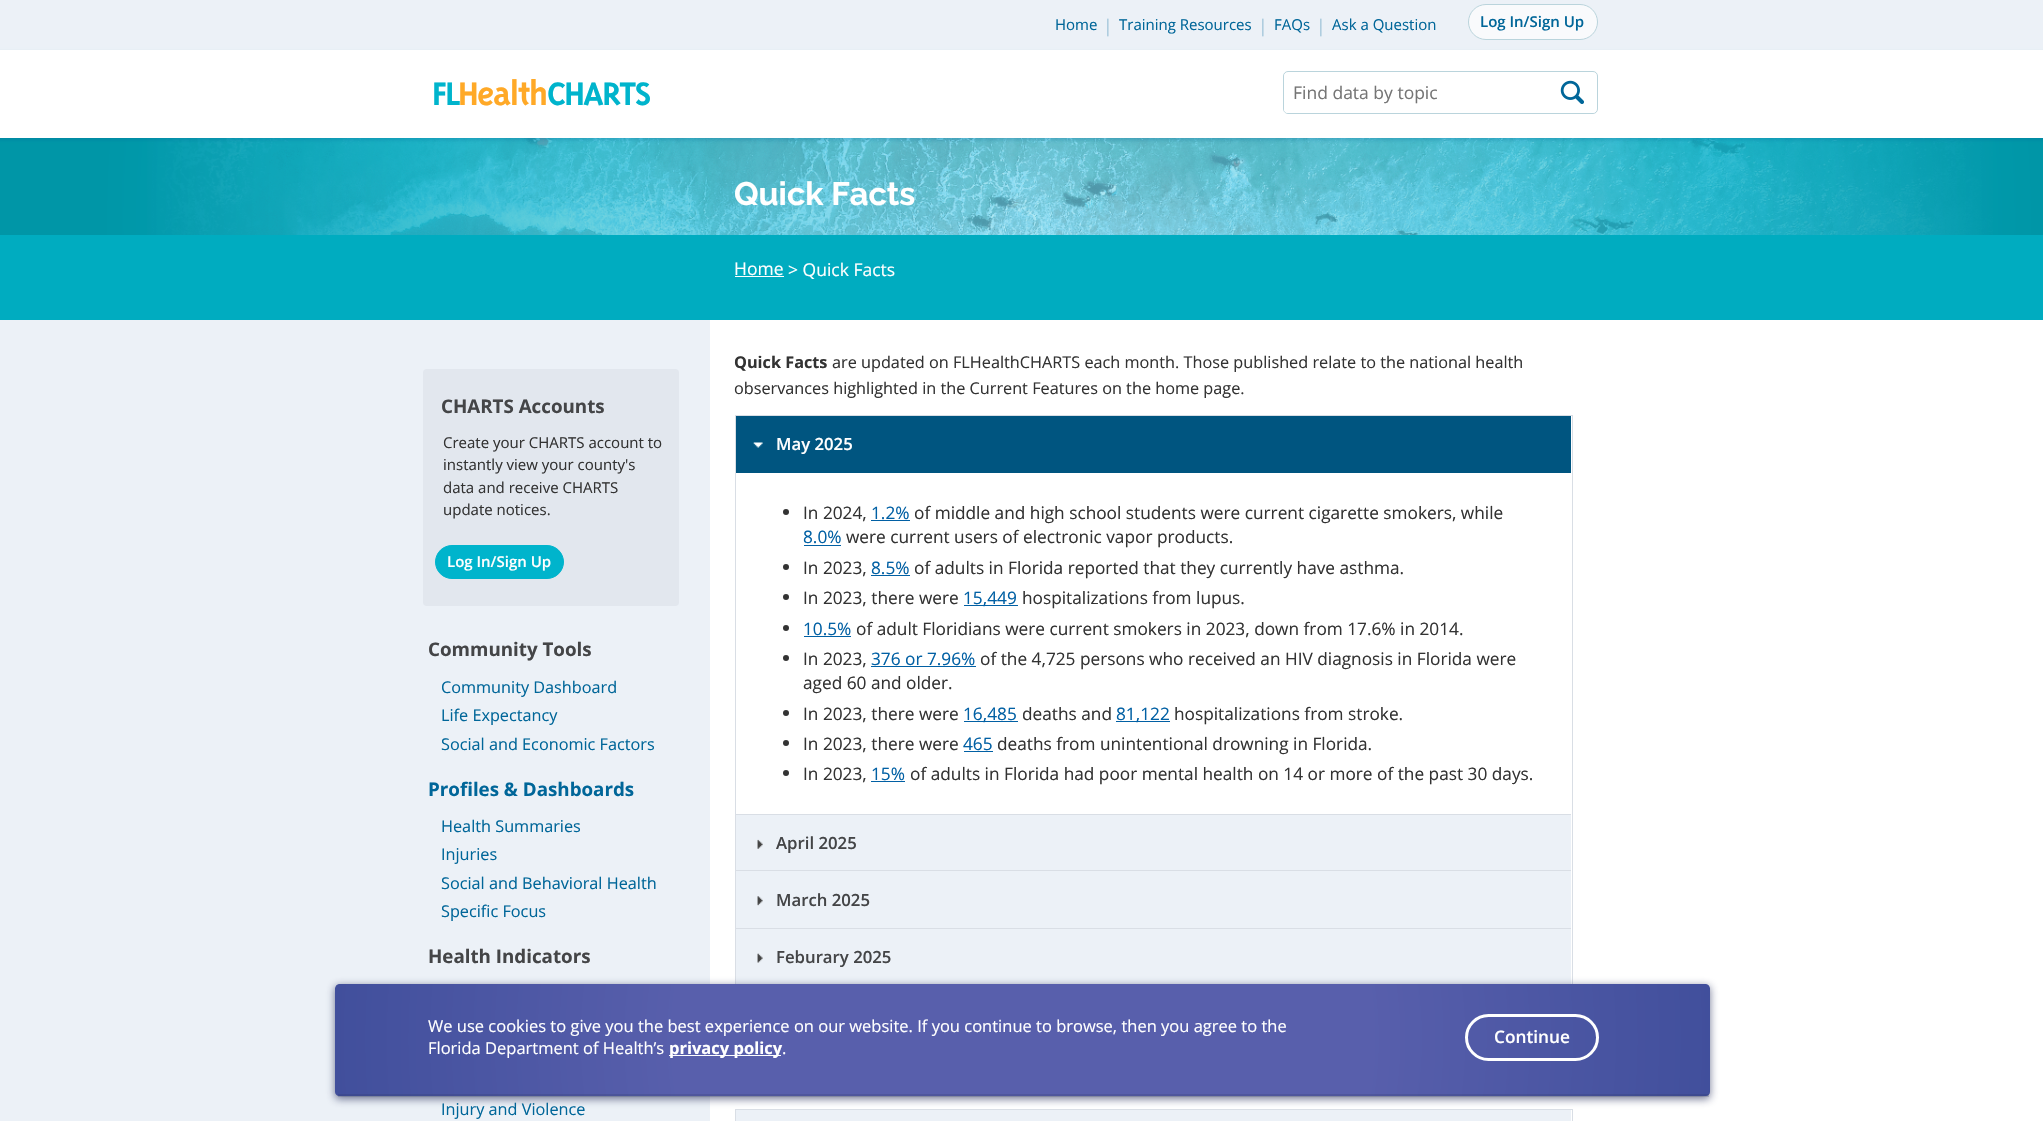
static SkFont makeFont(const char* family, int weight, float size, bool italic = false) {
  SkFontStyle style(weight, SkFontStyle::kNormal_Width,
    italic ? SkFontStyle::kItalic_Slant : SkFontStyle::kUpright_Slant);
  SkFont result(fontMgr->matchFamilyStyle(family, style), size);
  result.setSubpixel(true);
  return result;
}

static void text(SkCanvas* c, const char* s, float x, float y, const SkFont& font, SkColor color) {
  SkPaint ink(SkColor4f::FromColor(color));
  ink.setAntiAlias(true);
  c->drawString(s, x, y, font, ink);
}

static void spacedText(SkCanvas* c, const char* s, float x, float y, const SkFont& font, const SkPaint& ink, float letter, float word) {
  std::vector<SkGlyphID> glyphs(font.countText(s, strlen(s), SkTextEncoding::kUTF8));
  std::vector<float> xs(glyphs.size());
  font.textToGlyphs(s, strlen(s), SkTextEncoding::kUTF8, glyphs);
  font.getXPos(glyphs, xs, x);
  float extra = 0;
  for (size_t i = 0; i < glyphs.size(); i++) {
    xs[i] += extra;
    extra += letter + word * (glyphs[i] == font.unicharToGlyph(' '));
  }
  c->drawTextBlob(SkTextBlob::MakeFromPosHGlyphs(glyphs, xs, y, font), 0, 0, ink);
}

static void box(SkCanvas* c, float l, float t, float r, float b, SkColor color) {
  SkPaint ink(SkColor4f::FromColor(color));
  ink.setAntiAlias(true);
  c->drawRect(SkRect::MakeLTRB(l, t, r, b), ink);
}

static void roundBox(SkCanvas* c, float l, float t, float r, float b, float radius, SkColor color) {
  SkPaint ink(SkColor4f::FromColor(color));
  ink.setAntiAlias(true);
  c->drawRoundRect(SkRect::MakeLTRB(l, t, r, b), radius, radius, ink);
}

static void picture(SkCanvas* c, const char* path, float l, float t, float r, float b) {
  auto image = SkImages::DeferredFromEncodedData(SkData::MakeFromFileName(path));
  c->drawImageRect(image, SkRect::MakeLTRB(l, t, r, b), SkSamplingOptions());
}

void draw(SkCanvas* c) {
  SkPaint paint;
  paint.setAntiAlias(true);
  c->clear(0xffffffff);
  box(c, 0, 0, 2043, 50, 0xffecf1f7);
  SkFont face1 = makeFont("Open Sans", 400, 15);
  text(c, "Home", 1055, 30, face1, 0xff006699);
  SkFont face2 = makeFont("Open Sans", 400, 17.5f);
  text(c, "|", 1103, 32, face2, 0xffa5c7db);
  text(c, "Training Resources", 1119, 30, face1, 0xff006699);
  text(c, "|", 1258, 32, face2, 0xffa5c7db);
  text(c, "FAQs", 1274, 30, face1, 0xff006699);
  text(c, "|", 1316, 32, face2, 0xffa5c7db);
  text(c, "Ask a Question", 1332, 30, face1, 0xff006699);
  paint.setColor(0xfff9fafc);
  c->drawRoundRect(SkRect::MakeLTRB(1468.5f, 4.5f, 1597.5f, 39.5f), 17.5f, 17.5f, paint);
  paint.setStyle(SkPaint::kStroke_Style);
  paint.setStrokeWidth(1);
  paint.setColor(0xffbad4dc);
  c->drawRoundRect(SkRect::MakeLTRB(1468.5f, 4.5f, 1597.5f, 39.5f), 17.5f, 17.5f, paint);
  SkFont face3 = makeFont("Open Sans", 600, 15);
  text(c, "Log In/Sign Up", 1480, 27, face3, 0xff006699);
  box(c, 0, 138, 2043, 235, 0xff00a0af);
  picture(c, "img_02.png", 147, 138, 1993, 235);
  paint.setStyle(SkPaint::kFill_Style);
  {
    const SkColor colors[] = {0x595ccfdf, 0x8000b4cc, 0x80008ca0};
    const float stops[] = {0, 0.6f, 0.9f};
    paint.setShader(SkGradientShader::MakeRadial({1069, 219}, 1073, colors, stops, 3, SkTileMode::kClamp));
    paint.setAlpha(255);
  }
  c->drawRect(SkRect::MakeLTRB(0, 138, 2043, 235), paint);
  paint.setShader(nullptr);
  paint.setColor(0x4d006699);
  paint.setMaskFilter(SkMaskFilter::MakeBlur(kNormal_SkBlurStyle, 2));
  c->drawRect(SkRect::MakeLTRB(-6, 53, 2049, 140), paint);
  paint.setMaskFilter(nullptr);
  box(c, 0, 50, 2043, 138, 0xffffffff);
  SkFont face4 = makeFont("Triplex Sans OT", 700, 37.5f);
  paint.setColor(0xff00b4cc);
  spacedText(c, "FL", 432, 105, face4, paint, -1.5f, 0);
  paint.setColor(0xffffa927);
  spacedText(c, "Health", 458, 105, face4, paint, -1.5f, 0);
  paint.setColor(0xff00b4cc);
  spacedText(c, "CHARTS", 547, 105, face4, paint, -1.5f, 0);
  paint.setStyle(SkPaint::kStroke_Style);
  paint.setColor(0xffbad4dc);
  c->drawRoundRect(SkRect::MakeLTRB(1283.5f, 71.5f, 1597.5f, 113.5f), 4.5f, 4.5f, paint);
  roundBox(c, 1284, 73, 1596, 113, 4, 0xffffffff);
  text(c, "Find data by topic", 1293, 99, face2, 0xff757575);
  picture(c, "img_01.png", 1560, 80, 1584, 104);
  box(c, 0, 320, 710, 1121, 0xffecf1f7);
  SkFont face5 = makeFont("Raleway", 700, 32.5f);
  text(c, "Quick Facts", 734, 205, face5, 0xffffffff);
  paint.setStyle(SkPaint::kFill_Style);
  paint.setColor(0xff00acc0);
  c->drawPath(SkPathBuilder().moveTo(-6, 245).lineTo(-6, 320).lineTo(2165, 320).lineTo(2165, 301).lineTo(131, 301).lineTo(131, 251).lineTo(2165, 251).lineTo(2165, 245).close().detach(), paint);
  c->drawPath(SkPathBuilder().moveTo(-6, 235).lineTo(-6, 310).lineTo(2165, 310).lineTo(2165, 291).lineTo(131, 291).lineTo(131, 241).lineTo(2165, 241).lineTo(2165, 235).close().detach(), paint);
  box(c, 131, 241, 2043, 291, 0xff00acc0);
  text(c, "Home", 734, 275, face2, 0xffffffff);
  box(c, 735, 276, 784, 277, 0xffffffff);
  text(c, "> Quick Facts", 788, 276, face2, 0xffffffff);
  SkFont face6 = makeFont("Open Sans", 700, 16.25f);
  text(c, "Quick Facts", 734, 368, face6, 0xff333333);
  SkFont face7 = makeFont("Open Sans", 400, 16.25f);
  text(c, "are updated on FLHealthCHARTS each month. Those published relate to the national health", 832, 368, face7, 0xff333333);
  text(c, "observances highlighted in the Current Features on the home page.", 734, 394, face7, 0xff333333);
  paint.setStyle(SkPaint::kStroke_Style);
  paint.setColor(0xffd9dee5);
  c->drawRect(SkRect::MakeLTRB(735.5f, 415.5f, 1572.5f, 1043.5f), paint);
  box(c, 736, 416, 1571, 473, 0xff005580);
  picture(c, "img_03.png", 753, 442, 763, 448);
  SkFont face8 = makeFont("Open Sans", 600, 16.75f);
  text(c, "May 2025", 776, 450, face8, 0xffffffff);
  box(c, 736, 814, 1571, 815, 0xffd9dee5);
  paint.setStyle(SkPaint::kFill_Style);
  paint.setColor(0xff333333);
  c->drawCircle(786, 512, 3, paint);
  SkFont face9 = makeFont("Open Sans", 400, 17.25f);
  text(c, "In 2024,", 803, 519, face9, 0xff333333);
  text(c, "1.2%", 871, 519, face9, 0xff0160a4);
  box(c, 871, 520, 910, 521, 0xff0160a4);
  text(c, "of middle and high school students were current cigarette smokers, while", 914, 519, face9, 0xff333333);
  text(c, "8.0%", 803, 543, face9, 0xff0160a4);
  box(c, 804, 545, 841, 546, 0xff0160a4);
  text(c, "were current users of electronic vapor products.", 846, 543, face9, 0xff333333);
  c->drawCircle(786, 567, 3, paint);
  text(c, "In 2023,", 803, 574, face9, 0xff333333);
  text(c, "8.5%", 871, 574, face9, 0xff0160a4);
  box(c, 871, 575, 910, 576, 0xff0160a4);
  text(c, "of adults in Florida reported that they currently have asthma.", 914, 574, face9, 0xff333333);
  c->drawCircle(786, 597, 3, paint);
  text(c, "In 2023, there were", 803, 604, face9, 0xff333333);
  box(c, 964, 605, 1018, 606, 0xff0160a4);
  text(c, "15,449", 963, 604, face9, 0xff0160a4);
  text(c, "hospitalizations from lupus.", 1022, 604, face9, 0xff333333);
  c->drawCircle(786, 628, 3, paint);
  text(c, "10.5%", 803, 635, face9, 0xff0160a4);
  box(c, 804, 636, 851, 637, 0xff0160a4);
  text(c, "of adult Floridians were current smokers in 2023, down from 17.6% in 2014.", 856, 635, face9, 0xff333333);
  c->drawCircle(786, 658, 3, paint);
  text(c, "In 2023,", 803, 665, face9, 0xff333333);
  text(c, "376 or 7.96%", 871, 665, face9, 0xff0160a4);
  box(c, 871, 666, 976, 667, 0xff0160a4);
  text(c, "of the 4,725 persons who received an HIV diagnosis in Florida were", 980, 665, face9, 0xff333333);
  text(c, "aged 60 and older.", 803, 689, face9, 0xff333333);
  c->drawCircle(786, 713, 3, paint);
  text(c, "In 2023, there were", 803, 720, face9, 0xff333333);
  box(c, 964, 721, 1018, 722, 0xff0160a4);
  text(c, "16,485", 963, 720, face9, 0xff0160a4);
  text(c, "deaths and", 1022, 720, face9, 0xff333333);
  box(c, 1116, 721, 1170, 722, 0xff0160a4);
  text(c, "81,122", 1116, 720, face9, 0xff0160a4);
  text(c, "hospitalizations from stroke.", 1174, 720, face9, 0xff333333);
  c->drawCircle(786, 743, 3, paint);
  text(c, "In 2023, there were", 803, 750, face9, 0xff333333);
  text(c, "465", 963, 750, face9, 0xff0160a4);
  box(c, 964, 751, 993, 752, 0xff0160a4);
  text(c, "deaths from unintentional drowning in Florida.", 997, 750, face9, 0xff333333);
  c->drawCircle(786, 773, 3, paint);
  text(c, "In 2023,", 803, 780, face9, 0xff333333);
  text(c, "15%", 871, 780, face9, 0xff0160a4);
  box(c, 871, 781, 905, 782, 0xff0160a4);
  text(c, "of adults in Florida had poor mental health on 14 or more of the past 30 days.", 910, 780, face9, 0xff333333);
  box(c, 736, 815, 1571, 870, 0xffecf1f7);
  box(c, 736, 870, 1571, 871, 0xffd9dee5);
  picture(c, "img_04.png", 757, 839, 763, 849);
  text(c, "April 2025", 776, 849, face8, 0xff444547);
  box(c, 736, 871, 1571, 928, 0xffecf1f7);
  box(c, 736, 928, 1571, 929, 0xffd9dee5);
  picture(c, "img_05.png", 757, 896, 763, 906);
  text(c, "March 2025", 776, 906, face8, 0xff444547);
  box(c, 736, 929, 1571, 984, 0xffecf1f7);
  picture(c, "img_06.png", 757, 953, 763, 963);
  text(c, "Feburary 2025", 776, 963, face8, 0xff444547);
  paint.setStyle(SkPaint::kStroke_Style);
  paint.setColor(0xffd9dee5);
  c->drawRect(SkRect::MakeLTRB(735.5f, 1109.5f, 1572.5f, 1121.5f), paint);
  box(c, 736, 1110, 1571, 1121, 0xffecf1f7);
  roundBox(c, 423, 369, 679, 606, 4, 0xffe2e7ee);
  SkFont face10 = makeFont("Open Sans", 700, 18.75f);
  text(c, "CHARTS Accounts", 441, 413, face10, 0xff444547);
  text(c, "Create your CHARTS account to", 443, 448, face1, 0xff333333);
  text(c, "instantly view your county's", 443, 470, face1, 0xff333333);
  text(c, "data and receive CHARTS", 443, 493, face1, 0xff333333);
  text(c, "update notices.", 443, 515, face1, 0xff333333);
  paint.setStyle(SkPaint::kFill_Style);
  paint.setColor(0xff00b4cc);
  c->drawRoundRect(SkRect::MakeLTRB(435.5f, 545.5f, 563.5f, 578.5f), 16.5f, 16.5f, paint);
  paint.setStyle(SkPaint::kStroke_Style);
  c->drawRoundRect(SkRect::MakeLTRB(435.5f, 545.5f, 563.5f, 578.5f), 16.5f, 16.5f, paint);
  text(c, "Log In/Sign Up", 447, 567, face3, 0xffffffff);
  text(c, "Community Tools", 428, 656, face10, 0xff444547);
  text(c, "Community Dashboard", 441, 693, face7, 0xff006699);
  text(c, "Life Expectancy", 441, 721, face7, 0xff006699);
  text(c, "Social and Economic Factors", 441, 750, face7, 0xff006699);
  text(c, "Profiles & Dashboards", 428, 796, face10, 0xff006699);
  text(c, "Health Summaries", 441, 832, face7, 0xff006699);
  text(c, "Injuries", 441, 860, face7, 0xff006699);
  text(c, "Social and Behavioral Health", 441, 889, face7, 0xff006699);
  text(c, "Specific Focus", 441, 917, face7, 0xff006699);
  text(c, "Health Indicators", 428, 963, face10, 0xff444547);
  text(c, "Injury and Violence", 441, 1115, face7, 0xff006699);
  paint.setStyle(SkPaint::kFill_Style);
  paint.setColor(0xa628305c);
  paint.setMaskFilter(SkMaskFilter::MakeBlur(kNormal_SkBlurStyle, 4.5f));
  c->drawRoundRect(SkRect::MakeLTRB(335, 986, 1710, 1099), 4, 4, paint);
  paint.setMaskFilter(nullptr);
  c->save();
  c->clipPath(SkPathBuilder().moveTo(339, 984).lineTo(1706, 984).cubicTo(1708, 984, 1710, 986, 1710, 988).lineTo(1710, 1092).cubicTo(1710, 1094, 1708, 1096, 1706, 1096).lineTo(339, 1096).cubicTo(337, 1096, 335, 1094, 335, 1092).lineTo(335, 988).cubicTo(335, 986, 337, 984, 339, 984).close().detach(), true);
  {
    const SkColor colors[] = {0xff585fac, 0xff414f9c};
    const float stops[] = {0.5f, 1};
    paint.setShader(SkGradientShader::MakeRadial({1023, 1039}, 690, colors, stops, 2, SkTileMode::kClamp));
    paint.setAlpha(255);
  }
  c->drawPath(SkPathBuilder().moveTo(339, 984).lineTo(1706, 984).cubicTo(1708, 984, 1710, 986, 1710, 988).lineTo(1710, 1094).lineTo(335, 1094).lineTo(335, 988).cubicTo(335, 986, 337, 984, 339, 984).close().detach(), paint);
  {
    const SkColor colors[] = {0xff585fac, 0xff414f9c};
    const float stops[] = {0.5f, 1};
    paint.setShader(SkGradientShader::MakeRadial({1023, 1149}, 690, colors, stops, 2, SkTileMode::kClamp));
    paint.setAlpha(255);
  }
  c->drawRect(SkRect::MakeLTRB(335, 1094, 1710, 1096), paint);
  c->restore();
  box(c, 338, 1094, 1709, 1097, 0x3328305c);
  SkFont face11 = makeFont("Open Sans", 400, 16.5f);
  text(c, "We use cookies to give you the best experience on our website. If you continue to browse, then you agree to the", 428, 1032, face11, 0xffffffff);
  text(c, "Florida Department of Health’s", 428, 1054, face11, 0xffffffff);
  box(c, 669, 1055, 781, 1056, 0xffffffff);
  SkFont face12 = makeFont("Open Sans", 700, 16.5f);
  text(c, "privacy policy", 669, 1054, face12, 0xffffffff);
  text(c, ".", 782, 1054, face11, 0xffffffff);
  paint.setStyle(SkPaint::kStroke_Style);
  paint.setStrokeWidth(3);
  paint.setShader(nullptr);
  paint.setColor(0xffffffff);
  c->drawRoundRect(SkRect::MakeLTRB(1466.5f, 1015.5f, 1597.5f, 1059.5f), 22, 22, paint);
  SkFont face13 = makeFont("Open Sans", 600, 17.25f);
  text(c, "Continue", 1494, 1043, face13, 0xffffffff);
}
